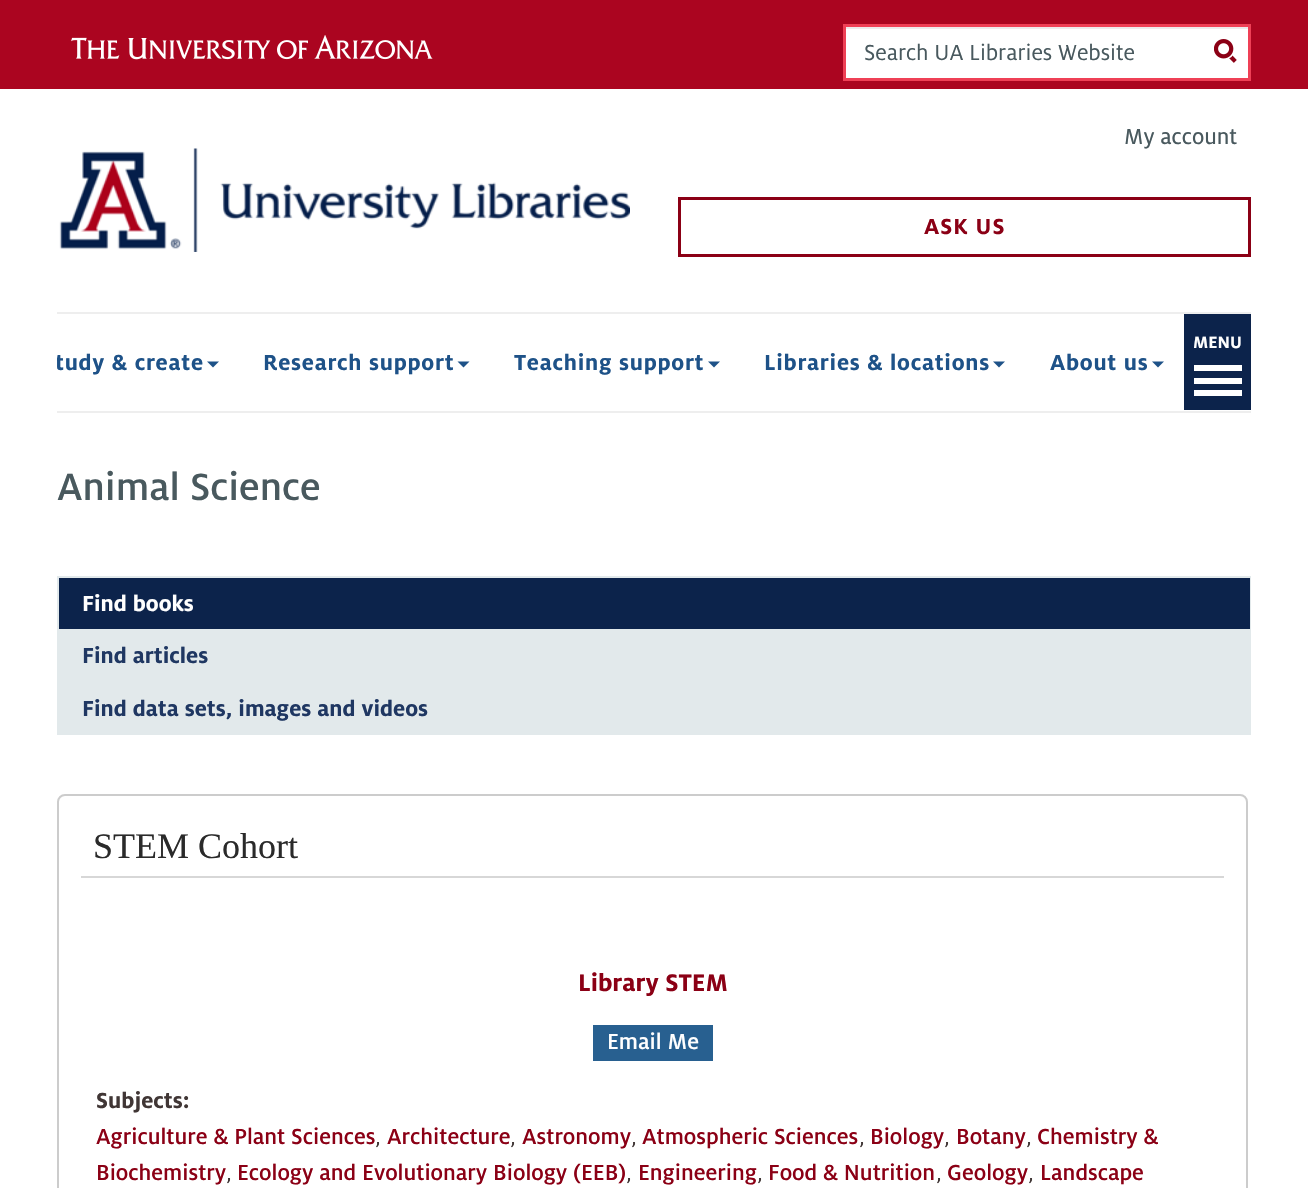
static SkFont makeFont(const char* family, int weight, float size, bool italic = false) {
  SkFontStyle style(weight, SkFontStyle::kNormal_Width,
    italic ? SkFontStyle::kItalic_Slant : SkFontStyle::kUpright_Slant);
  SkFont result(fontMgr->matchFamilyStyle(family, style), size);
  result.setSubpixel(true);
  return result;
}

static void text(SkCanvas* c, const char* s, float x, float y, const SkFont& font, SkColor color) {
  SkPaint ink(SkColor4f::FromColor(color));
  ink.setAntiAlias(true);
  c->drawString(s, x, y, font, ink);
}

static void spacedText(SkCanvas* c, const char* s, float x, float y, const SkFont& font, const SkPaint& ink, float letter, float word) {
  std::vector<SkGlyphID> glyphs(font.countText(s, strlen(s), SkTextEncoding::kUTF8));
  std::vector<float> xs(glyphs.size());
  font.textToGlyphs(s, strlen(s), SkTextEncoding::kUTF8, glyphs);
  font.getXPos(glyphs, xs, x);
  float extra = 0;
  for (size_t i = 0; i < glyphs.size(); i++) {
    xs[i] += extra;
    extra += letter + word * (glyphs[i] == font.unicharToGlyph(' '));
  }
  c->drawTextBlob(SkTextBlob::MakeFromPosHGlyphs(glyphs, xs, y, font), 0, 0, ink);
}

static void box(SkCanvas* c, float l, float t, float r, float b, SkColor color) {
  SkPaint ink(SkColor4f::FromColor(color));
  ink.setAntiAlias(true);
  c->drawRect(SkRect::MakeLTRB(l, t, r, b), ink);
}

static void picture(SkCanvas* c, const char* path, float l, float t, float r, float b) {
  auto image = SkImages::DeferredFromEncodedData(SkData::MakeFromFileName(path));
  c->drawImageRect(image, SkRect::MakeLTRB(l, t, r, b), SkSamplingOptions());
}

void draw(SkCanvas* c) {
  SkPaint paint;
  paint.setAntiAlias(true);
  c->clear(0xffffffff);
  box(c, 0, 0, 1308, 89, 0xffab0520);
  picture(c, "img_01.png", 71, 35, 433, 60);
  box(c, 846, 29, 1248, 78, 0xffffffff);
  box(c, 846, 27, 1248, 29, 0xffececec);
  paint.setStyle(SkPaint::kStroke_Style);
  paint.setStrokeWidth(3);
  paint.setColor(0xffef4056);
  c->drawRect(SkRect::MakeLTRB(844.5f, 25.5f, 1249.5f, 79.5f), paint);
  SkFont face1 = makeFont("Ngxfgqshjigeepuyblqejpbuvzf", 400, 24);
  text(c, "Search UA Libraries Website", 864, 60, face1, 0xff49595e);
  picture(c, "img_02.png", 1214, 39, 1237, 63);
  picture(c, "img_03.png", 59, 148, 630, 252);
  SkFont face2 = makeFont("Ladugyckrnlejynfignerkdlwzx", 400, 24);
  text(c, "My account", 1124, 144, face2, 0xff49595e);
  paint.setColor(0xff8b0015);
  c->drawRect(SkRect::MakeLTRB(679.5f, 198.5f, 1249.5f, 255.5f), paint);
  SkFont face3 = makeFont("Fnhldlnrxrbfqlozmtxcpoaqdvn", 700, 24);
  paint.setStyle(SkPaint::kFill_Style);
  spacedText(c, "ASK US", 924, 234, face3, paint, 1, 0);
  box(c, 57, 312, 1251, 314, 0xffeeeeee);
  box(c, 57, 411, 1251, 413, 0xffeeeeee);
  box(c, 1184, 314, 1251, 410, 0xff0c234b);
  SkFont face4 = makeFont("Fnhldlnrxrbfqlozmtxcpoaqdvn", 700, 18);
  text(c, "MENU", 1193, 348, face4, 0xffffffff);
  box(c, 1194, 365, 1242, 371, 0xffffffff);
  box(c, 1194, 378, 1242, 384, 0xffffffff);
  box(c, 1194, 390, 1242, 396, 0xffffffff);
  c->save();
  c->clipRect(SkRect::MakeLTRB(57, 314, 1182, 411));
  paint.setColor(0xff1e5288);
  spacedText(c, "tudy & create", 55, 370, face3, paint, 0.75f, 0);
  c->restore();
  c->drawPath(SkPathBuilder().moveTo(207, 361.5f).lineTo(219, 361.5f).lineTo(213, 367.5f).close().detach(), paint);
  spacedText(c, "Research support", 263, 370, face3, paint, 0.75f, 0);
  c->drawPath(SkPathBuilder().moveTo(457.5f, 361.5f).lineTo(469.5f, 361.5f).lineTo(463.5f, 367.5f).close().detach(), paint);
  spacedText(c, "Teaching support", 514, 370, face3, paint, 0.75f, 0);
  c->drawPath(SkPathBuilder().moveTo(708, 361.5f).lineTo(720, 361.5f).lineTo(714, 367.5f).close().detach(), paint);
  spacedText(c, "Libraries & locations", 764, 370, face3, paint, 0.75f, 0);
  c->drawPath(SkPathBuilder().moveTo(993, 361.5f).lineTo(1005, 361.5f).lineTo(999, 367.5f).close().detach(), paint);
  spacedText(c, "About us", 1050, 370, face3, paint, 0.75f, 0);
  c->drawPath(SkPathBuilder().moveTo(1152, 361.5f).lineTo(1164, 361.5f).lineTo(1158, 367.5f).close().detach(), paint);
  SkFont face5 = makeFont("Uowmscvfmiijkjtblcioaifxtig", 500, 42);
  text(c, "Animal Science", 57, 500, face5, 0xff49595e);
  paint.setStyle(SkPaint::kStroke_Style);
  paint.setStrokeWidth(2);
  paint.setColor(0xffe2e9eb);
  c->drawRect(SkRect::MakeLTRB(58, 577, 1250, 629), paint);
  box(c, 59, 578, 1250, 629, 0xff0c234b);
  text(c, "Find books", 82, 611, face3, 0xffffffff);
  c->drawRect(SkRect::MakeLTRB(58, 630, 1250, 682), paint);
  box(c, 59, 631, 1249, 681, 0xffe2e9eb);
  text(c, "Find articles", 82, 663, face3, 0xff1f3762);
  c->drawRect(SkRect::MakeLTRB(58, 682, 1250, 734), paint);
  box(c, 59, 683, 1249, 733, 0xffe2e9eb);
  text(c, "Find data sets, images and videos", 82, 716, face3, 0xff1f3762);
  paint.setColor(0xffcccccc);
  c->drawRoundRect(SkRect::MakeLTRB(58, 795, 1247, 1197), 7, 7, paint);
  box(c, 81, 876, 1224, 878, 0xffd7d7d7);
  SkFont face6 = makeFont("Liberation Serif", 400, 36);
  text(c, "STEM Cohort", 93, 858, face6, 0xff2a2a2a);
  SkFont face7 = makeFont("Fnhldlnrxrbfqlozmtxcpoaqdvn", 700, 26.5f);
  text(c, "Library STEM", 578, 991, face7, 0xff8b0015);
  box(c, 593, 1025, 713, 1061, 0xff286090);
  SkFont face8 = makeFont("Uowmscvfmiijkjtblcioaifxtig", 500, 24);
  text(c, "Email Me", 607, 1049, face8, 0xffffffff);
  text(c, "Subjects:", 96, 1108, face3, 0xff403635);
  text(c, "Agriculture & Plant Sciences", 96, 1144, face8, 0xff8b0015);
  text(c, ",", 375, 1144, face1, 0xff403635);
  text(c, "Architecture", 387, 1144, face8, 0xff8b0015);
  text(c, ",", 510, 1144, face1, 0xff403635);
  text(c, "Astronomy", 522, 1144, face8, 0xff8b0015);
  text(c, ",", 631, 1144, face1, 0xff403635);
  text(c, "Atmospheric Sciences", 642, 1144, face8, 0xff8b0015);
  text(c, ",", 859, 1144, face1, 0xff403635);
  text(c, "Biology", 870, 1144, face8, 0xff8b0015);
  text(c, ",", 944, 1144, face1, 0xff403635);
  text(c, "Botany", 956, 1144, face8, 0xff8b0015);
  text(c, ",", 1026, 1144, face1, 0xff403635);
  text(c, "Chemistry &", 1037, 1144, face8, 0xff8b0015);
  text(c, "Biochemistry", 96, 1180, face8, 0xff8b0015);
  text(c, ",", 226, 1180, face1, 0xff403635);
  text(c, "Ecology and Evolutionary Biology (EEB)", 237, 1180, face8, 0xff8b0015);
  text(c, ",", 626, 1180, face1, 0xff403635);
  text(c, "Engineering", 638, 1180, face8, 0xff8b0015);
  text(c, ",", 757, 1180, face1, 0xff403635);
  text(c, "Food & Nutrition", 768, 1180, face8, 0xff8b0015);
  text(c, ",", 936, 1180, face1, 0xff403635);
  text(c, "Geology", 947, 1180, face8, 0xff8b0015);
  text(c, ",", 1028, 1180, face1, 0xff403635);
  text(c, "Landscape", 1040, 1180, face8, 0xff8b0015);
}
